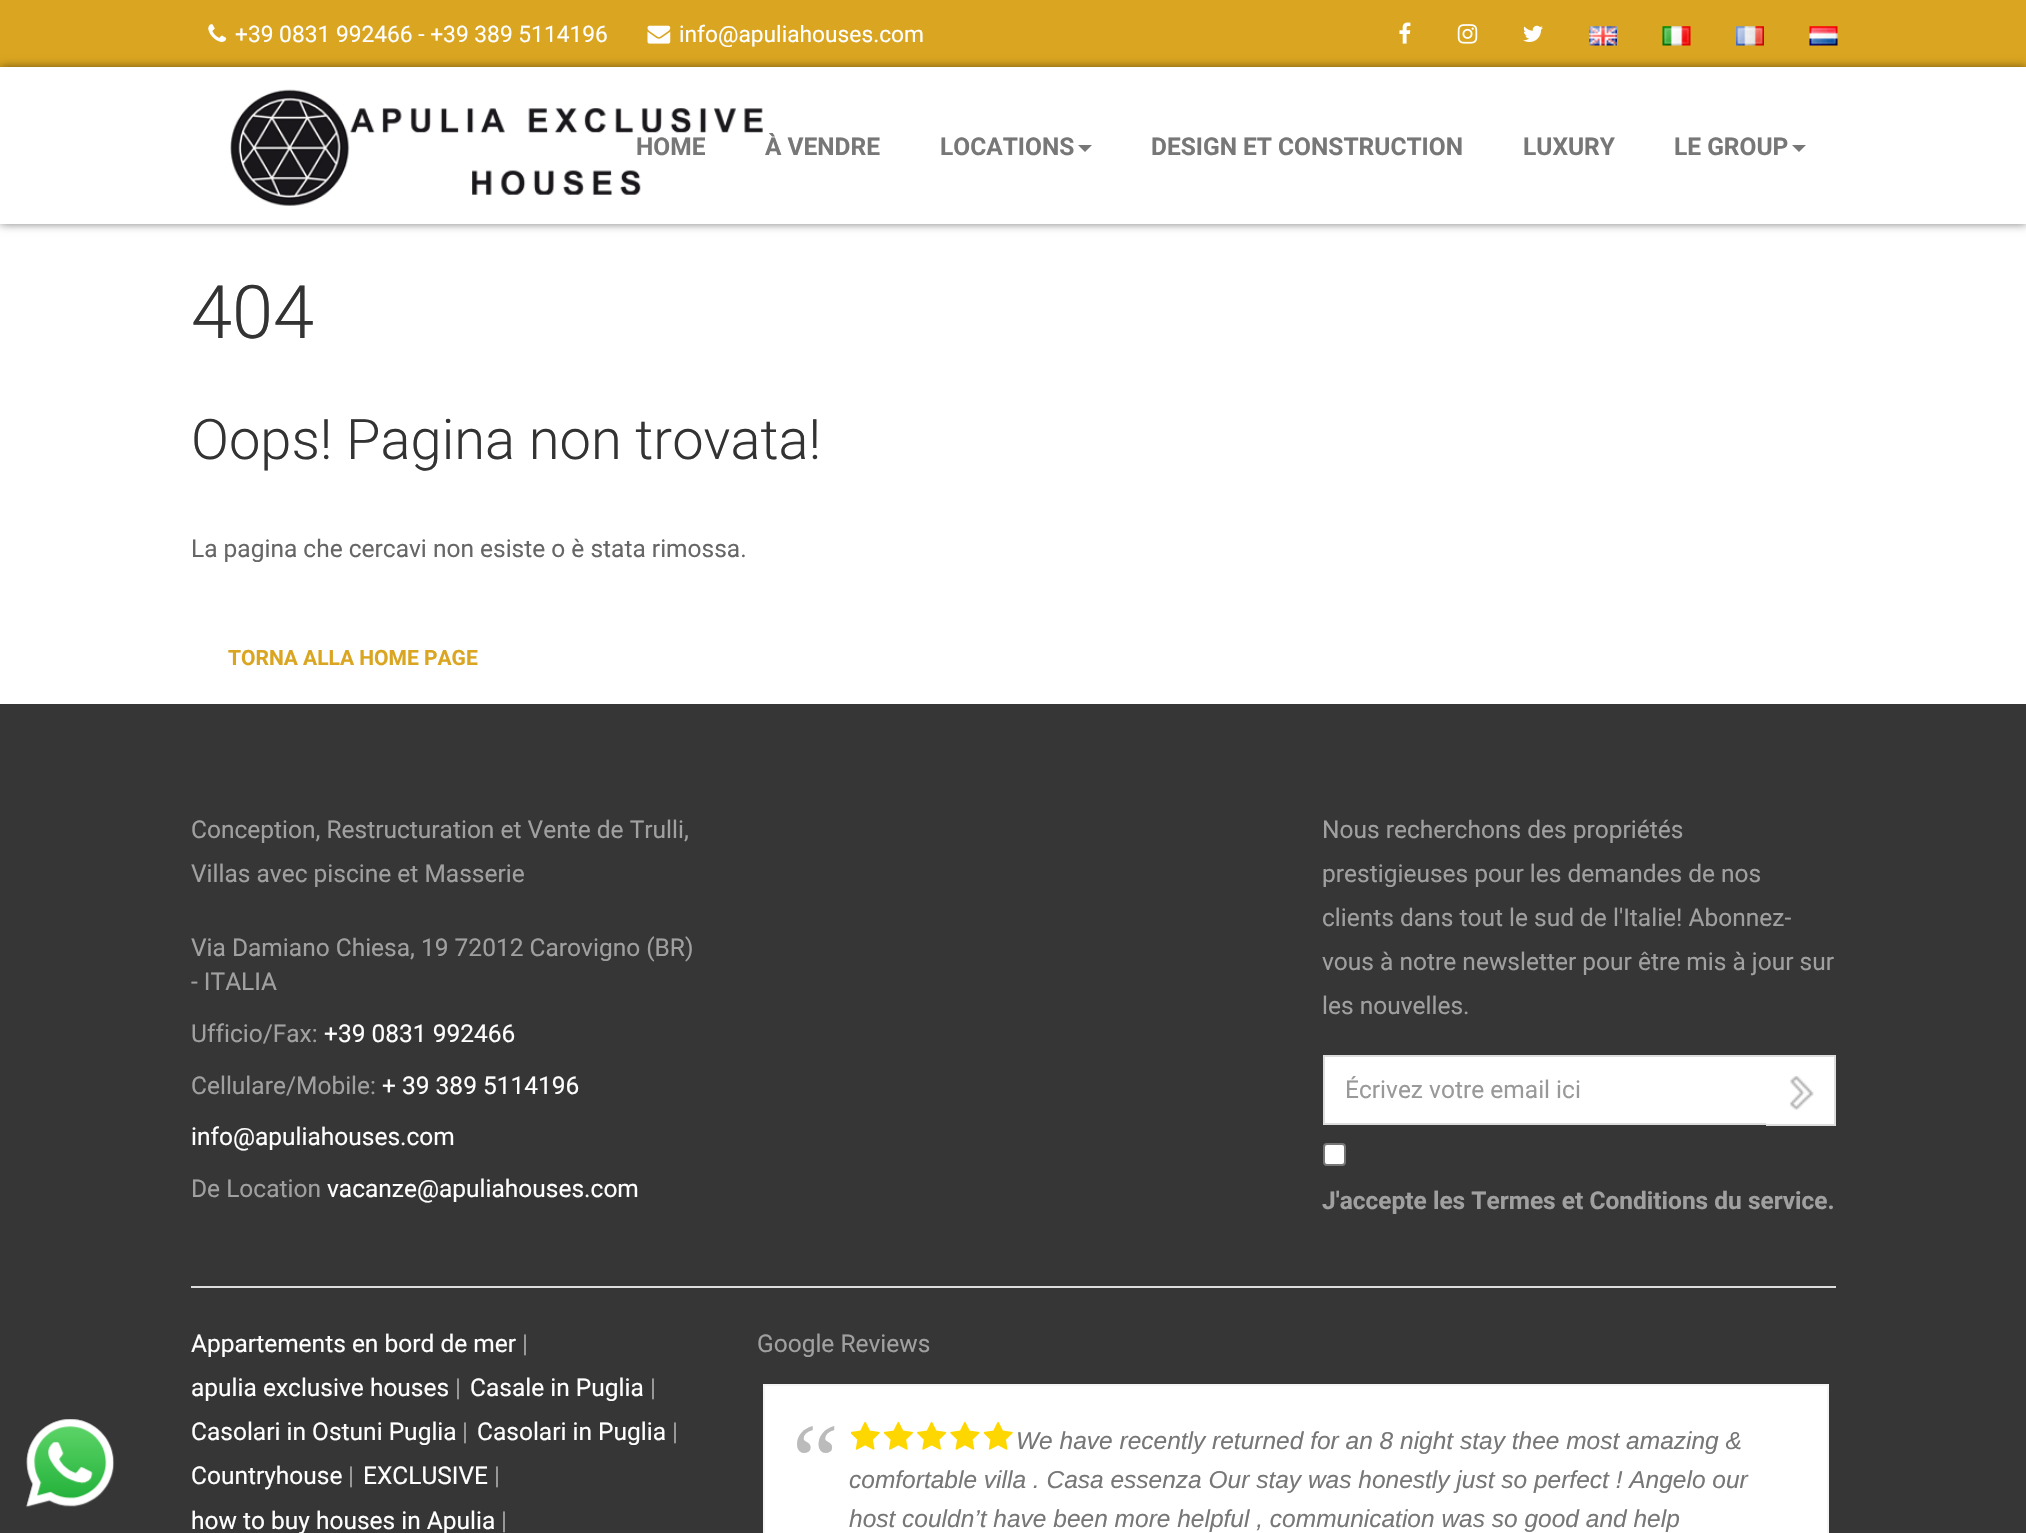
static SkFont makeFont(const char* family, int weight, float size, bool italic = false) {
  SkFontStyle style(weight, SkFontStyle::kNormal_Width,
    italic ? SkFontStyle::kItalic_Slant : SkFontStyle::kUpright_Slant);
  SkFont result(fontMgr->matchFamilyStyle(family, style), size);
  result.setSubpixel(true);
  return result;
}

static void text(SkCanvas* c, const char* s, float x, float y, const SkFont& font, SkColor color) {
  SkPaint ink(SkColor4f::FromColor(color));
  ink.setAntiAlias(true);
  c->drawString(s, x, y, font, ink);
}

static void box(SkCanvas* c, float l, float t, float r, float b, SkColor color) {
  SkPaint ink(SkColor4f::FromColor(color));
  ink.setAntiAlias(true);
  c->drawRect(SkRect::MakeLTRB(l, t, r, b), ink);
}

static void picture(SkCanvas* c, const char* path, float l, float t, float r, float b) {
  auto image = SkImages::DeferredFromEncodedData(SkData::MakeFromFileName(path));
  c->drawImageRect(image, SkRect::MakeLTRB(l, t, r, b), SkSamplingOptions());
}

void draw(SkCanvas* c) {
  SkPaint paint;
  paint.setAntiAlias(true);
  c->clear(0xffffffff);
  box(c, 0, 704, 2026, 1533, 0xff363636);
  picture(c, "img_01.png", 26, 1419, 115, 1508);
  box(c, 0, 0, 2026, 67, 0xffdaa520);
  picture(c, "img_02.png", 208, 24, 227, 42);
  SkFont face1 = makeFont("Roboto", 400, 22.75f);
  text(c, "+39 0831 992466 - +39 389 5114196", 235, 42, face1, 0xffffffff);
  picture(c, "img_03.png", 647, 25, 671, 44);
  text(c, "info@apuliahouses.com", 679, 42, face1, 0xffffffff);
  picture(c, "img_04.png", 1399, 22, 1411, 44);
  picture(c, "img_05.png", 1457, 24, 1478, 44);
  picture(c, "img_06.png", 1523, 25, 1543, 42);
  picture(c, "img_07.png", 1589, 26, 1617, 46);
  picture(c, "img_08.png", 1662, 26, 1691, 46);
  picture(c, "img_09.png", 1736, 26, 1764, 46);
  picture(c, "img_10.png", 1809, 26, 1838, 46);
  paint.setColor(0x80000000);
  paint.setMaskFilter(SkMaskFilter::MakeBlur(kNormal_SkBlurStyle, 4.5f));
  c->drawRect(SkRect::MakeLTRB(0, 67, 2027, 224), paint);
  paint.setMaskFilter(nullptr);
  box(c, 0, 67, 2026, 224, 0xffffffff);
  picture(c, "img_11.png", 230, 89, 763, 206);
  SkFont face2 = makeFont("Roboto", 700, 24.5f);
  text(c, "HOME", 636, 155, face2, 0xff777777);
  text(c, "À VENDRE", 765, 155, face2, 0xff777777);
  text(c, "LOCATIONS", 940, 155, face2, 0xff777777);
  paint.setColor(0xff777777);
  c->drawPath(SkPathBuilder().moveTo(1078, 145).lineTo(1092, 145).lineTo(1085, 152).close().detach(), paint);
  text(c, "DESIGN ET CONSTRUCTION", 1151, 155, face2, 0xff777777);
  text(c, "LUXURY", 1523, 155, face2, 0xff777777);
  text(c, "LE GROUP", 1674, 155, face2, 0xff777777);
  c->drawPath(SkPathBuilder().moveTo(1792, 145).lineTo(1806, 145).lineTo(1799, 152).close().detach(), paint);
  SkFont face3 = makeFont("Roboto", 300, 74);
  text(c, "404", 191, 338, face3, 0xff333333);
  SkFont face4 = makeFont("Roboto", 300, 56);
  text(c, "Oops! Pagina non trovata!", 191, 459, face4, 0xff333333);
  SkFont face5 = makeFont("Roboto", 400, 24.5f);
  text(c, "La pagina che cercavi non esiste o è stata rimossa.", 191, 557, face5, 0xff666666);
  SkFont face6 = makeFont("Roboto", 700, 21);
  text(c, "TORNA ALLA HOME PAGE", 228, 665, face6, 0xffdaa520);
  text(c, "Conception, Restructuration et Vente de Trulli,", 191, 838, face5, 0xffa0a0a0);
  text(c, "Villas avec piscine et Masserie", 191, 882, face5, 0xffa0a0a0);
  text(c, "Via Damiano Chiesa, 19 72012 Carovigno (BR)", 191, 956, face5, 0xffa0a0a0);
  text(c, "- ITALIA", 191, 990, face5, 0xffa0a0a0);
  text(c, "Ufficio/Fax:", 191, 1042, face5, 0xffa0a0a0);
  text(c, "+39 0831 992466", 324, 1042, face5, 0xffffffff);
  text(c, "Cellulare/Mobile:", 191, 1094, face5, 0xffa0a0a0);
  text(c, "+ 39 389 5114196", 382, 1094, face5, 0xffffffff);
  text(c, "info@apuliahouses.com", 191, 1145, face5, 0xffffffff);
  text(c, "De Location", 191, 1197, face5, 0xffa0a0a0);
  text(c, "vacanze@apuliahouses.com", 327, 1197, face5, 0xffffffff);
  text(c, "Nous recherchons des propriétés", 1322, 838, face5, 0xffa0a0a0);
  text(c, "prestigieuses pour les demandes de nos", 1322, 882, face5, 0xffa0a0a0);
  text(c, "clients dans tout le sud de l'Italie! Abonnez-", 1322, 926, face5, 0xffa0a0a0);
  text(c, "vous à notre newsletter pour être mis à jour sur", 1322, 970, face5, 0xffa0a0a0);
  text(c, "les nouvelles.", 1322, 1014, face5, 0xffa0a0a0);
  box(c, 1325, 1057, 1766, 1123, 0xffffffff);
  paint.setStyle(SkPaint::kStroke_Style);
  paint.setStrokeWidth(2);
  paint.setColor(0xffdddddd);
  c->drawRect(SkRect::MakeLTRB(1324, 1056, 1835, 1124), paint);
  c->save();
  c->clipRect(SkRect::MakeLTRB(1346, 1076, 1813, 1104));
  text(c, "Écrivez votre email ici", 1345, 1098, face5, 0xff999999);
  c->restore();
  box(c, 1766, 1057, 1834, 1124, 0xffffffff);
  box(c, 1766, 1125, 1836, 1126, 0xffdddddd);
  picture(c, "img_12.png", 1790, 1076, 1814, 1110);
  paint.setStyle(SkPaint::kFill_Style);
  paint.setColor(0xffffffff);
  c->drawRoundRect(SkRect::MakeLTRB(1324, 1144, 1345, 1165), 3, 3, paint);
  paint.setStyle(SkPaint::kStroke_Style);
  paint.setColor(0xff767676);
  c->drawRoundRect(SkRect::MakeLTRB(1324, 1144, 1345, 1165), 3, 3, paint);
  text(c, "J'accepte les Termes et Conditions du service.", 1322, 1209, face2, 0xffa0a0a0);
  box(c, 191, 1286, 1836, 1288, 0xffdddddd);
  text(c, "Appartements en bord de mer", 191, 1352, face5, 0xffffffff);
  text(c, "|", 522, 1352, face5, 0xffa0a0a0);
  text(c, "apulia exclusive houses", 191, 1396, face5, 0xffffffff);
  text(c, "|", 455, 1396, face5, 0xffa0a0a0);
  text(c, "Casale in Puglia", 470, 1396, face5, 0xffffffff);
  text(c, "|", 650, 1396, face5, 0xffa0a0a0);
  text(c, "Casolari in Ostuni Puglia", 191, 1440, face5, 0xffffffff);
  text(c, "|", 462, 1440, face5, 0xffa0a0a0);
  text(c, "Casolari in Puglia", 477, 1440, face5, 0xffffffff);
  text(c, "|", 672, 1440, face5, 0xffa0a0a0);
  text(c, "Countryhouse", 191, 1484, face5, 0xffffffff);
  text(c, "|", 348, 1484, face5, 0xffa0a0a0);
  text(c, "EXCLUSIVE", 363, 1484, face5, 0xffffffff);
  text(c, "|", 494, 1484, face5, 0xffa0a0a0);
  text(c, "how to buy houses in Apulia", 191, 1529, face5, 0xffffffff);
  text(c, "|", 501, 1529, face5, 0xffa0a0a0);
  text(c, "Google Reviews", 757, 1352, face5, 0xffa0a0a0);
  paint.setStyle(SkPaint::kFill_Style);
  paint.setColor(0xffffffff);
  c->drawRect(SkRect::MakeLTRB(764, 1385, 1828, 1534), paint);
  paint.setStyle(SkPaint::kStroke_Style);
  paint.setColor(0xfff5f5f5);
  c->drawRect(SkRect::MakeLTRB(764, 1385, 1828, 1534), paint);
  SkFont face7 = makeFont("Liberation Serif", 400, 105);
  text(c, "“", 792, 1496, face7, 0xffbbbbbb);
  picture(c, "img_13.png", 851, 1421, 880, 1450);
  picture(c, "img_14.png", 884, 1421, 913, 1450);
  picture(c, "img_15.png", 917, 1421, 947, 1450);
  picture(c, "img_16.png", 950, 1421, 980, 1450);
  picture(c, "img_13.png", 984, 1421, 1013, 1450);
  SkFont face8 = makeFont("Liberation Sans", 400, 24.5f, true);
  text(c, "We have recently returned for an 8 night stay thee most amazing &", 1016, 1449, face8, 0xff777777);
  text(c, "comfortable villa . Casa essenza Our stay was honestly just so perfect ! Angelo our", 849, 1488, face8, 0xff777777);
  text(c, "host couldn’t have been more helpful , communication was so good and help", 849, 1527, face8, 0xff777777);
}
